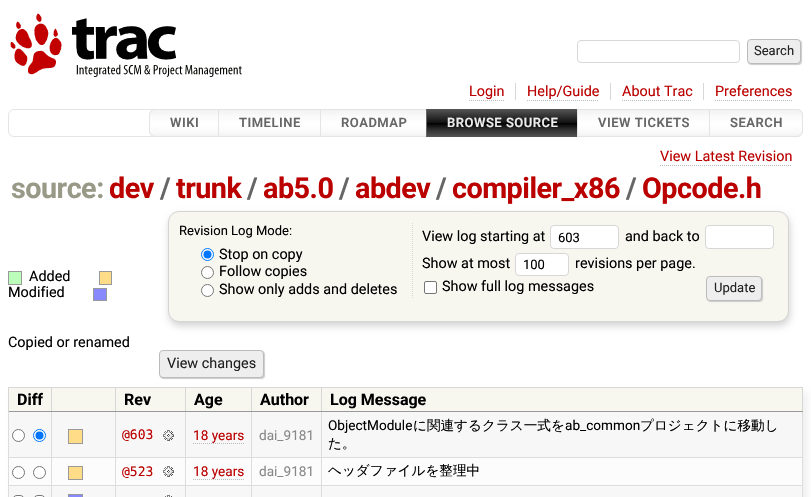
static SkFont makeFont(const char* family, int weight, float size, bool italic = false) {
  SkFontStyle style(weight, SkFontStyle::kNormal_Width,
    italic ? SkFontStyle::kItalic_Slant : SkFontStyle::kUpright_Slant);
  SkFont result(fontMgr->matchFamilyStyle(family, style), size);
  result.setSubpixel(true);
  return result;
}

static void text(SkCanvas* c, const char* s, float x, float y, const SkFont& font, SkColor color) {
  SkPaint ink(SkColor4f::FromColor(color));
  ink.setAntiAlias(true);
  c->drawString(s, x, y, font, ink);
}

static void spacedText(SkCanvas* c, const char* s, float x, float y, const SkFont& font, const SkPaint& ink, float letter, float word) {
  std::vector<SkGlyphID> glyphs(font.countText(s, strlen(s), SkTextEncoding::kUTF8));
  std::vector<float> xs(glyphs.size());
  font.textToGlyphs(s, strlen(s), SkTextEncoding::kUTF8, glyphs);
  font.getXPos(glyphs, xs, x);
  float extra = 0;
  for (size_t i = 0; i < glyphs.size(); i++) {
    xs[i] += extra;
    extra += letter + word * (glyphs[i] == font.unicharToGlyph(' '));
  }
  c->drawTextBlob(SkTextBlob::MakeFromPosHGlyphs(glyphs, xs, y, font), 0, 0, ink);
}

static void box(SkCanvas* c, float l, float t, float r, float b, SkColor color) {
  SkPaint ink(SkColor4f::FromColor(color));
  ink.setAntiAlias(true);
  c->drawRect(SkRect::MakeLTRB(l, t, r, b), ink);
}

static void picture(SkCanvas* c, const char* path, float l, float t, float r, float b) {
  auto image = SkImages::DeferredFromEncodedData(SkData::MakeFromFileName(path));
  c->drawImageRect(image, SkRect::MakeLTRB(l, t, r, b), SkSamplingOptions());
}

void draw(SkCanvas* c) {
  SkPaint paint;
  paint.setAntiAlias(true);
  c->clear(0xffffffff);
  picture(c, "img_01.png", 10, 13, 242, 77);
  paint.setStyle(SkPaint::kStroke_Style);
  paint.setStrokeWidth(1);
  paint.setColor(0xffd7d7d7);
  c->drawRoundRect(SkRect::MakeLTRB(577.5f, 40.5f, 739.5f, 62.5f), 3.5f, 3.5f, paint);
  paint.setStyle(SkPaint::kFill_Style);
  paint.setColor(0xffcccccc);
  paint.setMaskFilter(SkMaskFilter::MakeBlur(kNormal_SkBlurStyle, 0.5f));
  c->drawRoundRect(SkRect::MakeLTRB(748, 40, 802, 65), 4, 4, paint);
  paint.setMaskFilter(nullptr);
  paint.setColor(0xffeeeeee);
  c->drawRoundRect(SkRect::MakeLTRB(747.5f, 39.5f, 800.5f, 63.5f), 3.5f, 3.5f, paint);
  paint.setStyle(SkPaint::kStroke_Style);
  paint.setColor(0xffbbbbbb);
  c->drawRoundRect(SkRect::MakeLTRB(747.5f, 39.5f, 800.5f, 63.5f), 3.5f, 3.5f, paint);
  SkFont face1 = makeFont("Roboto", 400, 13);
  text(c, "Search", 754, 55, face1, 0xff222222);
  box(c, 515, 83, 516, 100, 0xffd7d7d7);
  SkFont face2 = makeFont("Roboto", 400, 14.4f);
  text(c, "Login", 469, 96, face2, 0xffbb0000);
  paint.setPathEffect(SkDashPathEffect::Make({{1, 1}}, 0));
  c->drawPath(SkPathBuilder().moveTo(469, 100.5f).lineTo(504, 100.5f).detach(), paint);
  paint.setPathEffect(nullptr);
  box(c, 610, 83, 611, 100, 0xffd7d7d7);
  text(c, "Help/Guide", 527, 96, face2, 0xffbb0000);
  paint.setPathEffect(SkDashPathEffect::Make({{1, 1}}, 0));
  c->drawPath(SkPathBuilder().moveTo(527, 100.5f).lineTo(599, 100.5f).detach(), paint);
  paint.setPathEffect(nullptr);
  box(c, 703, 83, 704, 100, 0xffd7d7d7);
  text(c, "About Trac", 622, 96, face2, 0xffbb0000);
  paint.setPathEffect(SkDashPathEffect::Make({{1, 1}}, 0));
  c->drawPath(SkPathBuilder().moveTo(622, 100.5f).lineTo(692, 100.5f).detach(), paint);
  paint.setPathEffect(nullptr);
  text(c, "Preferences", 715, 96, face2, 0xffbb0000);
  paint.setPathEffect(SkDashPathEffect::Make({{1, 1}}, 0));
  c->drawPath(SkPathBuilder().moveTo(715, 100.5f).lineTo(792, 100.5f).detach(), paint);
  paint.setPathEffect(nullptr);
  paint.setColor(0xffe4e4e4);
  c->drawRoundRect(SkRect::MakeLTRB(8.5f, 109.5f, 802.5f, 136.5f), 5.5f, 5.5f, paint);
  c->save();
  c->clipPath(SkPathBuilder().moveTo(155, 109).lineTo(220, 109).lineTo(220, 137).lineTo(155, 137).cubicTo(151.5f, 137, 149, 134.5f, 149, 131).lineTo(149, 115).cubicTo(149, 111.5f, 151.5f, 109, 155, 109).close().detach(), true);
  paint.setStyle(SkPaint::kFill_Style);
  {
    const SkColor colors[] = {0xfff2f2f2, 0xfffafafa, 0xfffefefe, 0xffffffff, 0xfffafafa, 0xfff2f2f2};
    const float stops[] = {0, 0.25f, 0.49f, 0.51f, 0.85f, 1};
    const SkPoint ends[] = {{185, 110}, {185, 136}};
    paint.setShader(SkGradientShader::MakeLinear(ends, colors, stops, 6, SkTileMode::kClamp));
    paint.setAlpha(255);
  }
  c->drawRect(SkRect::MakeLTRB(149, 110, 218, 136), paint);
  c->restore();
  paint.setStyle(SkPaint::kStroke_Style);
  paint.setShader(nullptr);
  paint.setColor(0xffe4e4e4);
  c->drawPath(SkPathBuilder().moveTo(155, 109.5f).lineTo(219.5f, 109.5f).lineTo(219.5f, 136.5f).lineTo(155, 136.5f).cubicTo(152, 136.5f, 149.5f, 134, 149.5f, 131).lineTo(149.5f, 115).cubicTo(149.5f, 112, 152, 109.5f, 155, 109.5f).close().detach(), paint);
  SkFont face3 = makeFont("Roboto", 600, 13);
  paint.setStyle(SkPaint::kFill_Style);
  paint.setColor(0xff666666);
  spacedText(c, "WIKI", 170, 127, face3, paint, 0.5f, 0);
  {
    const SkColor colors[] = {0xfff2f2f2, 0xfffafafa, 0xfffefefe, 0xffffffff, 0xfffafafa, 0xfff2f2f2};
    const float stops[] = {0, 0.25f, 0.49f, 0.51f, 0.85f, 1};
    const SkPoint ends[] = {{270, 110}, {270, 136}};
    paint.setShader(SkGradientShader::MakeLinear(ends, colors, stops, 6, SkTileMode::kClamp));
    paint.setAlpha(255);
  }
  c->drawRect(SkRect::MakeLTRB(219, 110, 320, 136), paint);
  paint.setStyle(SkPaint::kStroke_Style);
  paint.setShader(nullptr);
  paint.setColor(0xffe4e4e4);
  c->drawRect(SkRect::MakeLTRB(218.5f, 109.5f, 320.5f, 136.5f), paint);
  paint.setStyle(SkPaint::kFill_Style);
  paint.setColor(0xff666666);
  spacedText(c, "TIMELINE", 239, 127, face3, paint, 0.5f, 0);
  {
    const SkColor colors[] = {0xfff2f2f2, 0xfffafafa, 0xfffefefe, 0xffffffff, 0xfffafafa, 0xfff2f2f2};
    const float stops[] = {0, 0.25f, 0.49f, 0.51f, 0.85f, 1};
    const SkPoint ends[] = {{374, 110}, {374, 136}};
    paint.setShader(SkGradientShader::MakeLinear(ends, colors, stops, 6, SkTileMode::kClamp));
    paint.setAlpha(255);
  }
  c->drawRect(SkRect::MakeLTRB(321, 110, 426, 136), paint);
  paint.setStyle(SkPaint::kStroke_Style);
  paint.setShader(nullptr);
  paint.setColor(0xffe4e4e4);
  c->drawRect(SkRect::MakeLTRB(320.5f, 109.5f, 427.5f, 136.5f), paint);
  paint.setStyle(SkPaint::kFill_Style);
  paint.setColor(0xff666666);
  spacedText(c, "ROADMAP", 341, 127, face3, paint, 0.5f, 0);
  paint.setStyle(SkPaint::kStroke_Style);
  c->drawRect(SkRect::MakeLTRB(426.5f, 109.5f, 578.5f, 136.5f), paint);
  paint.setStyle(SkPaint::kFill_Style);
  {
    const SkColor colors[] = {0xff555555, 0xff333333, 0xff111111, 0xff000000, 0xff333333, 0xff555555};
    const float stops[] = {0, 0.25f, 0.49f, 0.51f, 0.75f, 1};
    const SkPoint ends[] = {{503, 109}, {503, 137}};
    paint.setShader(SkGradientShader::MakeLinear(ends, colors, stops, 6, SkTileMode::kClamp));
    paint.setAlpha(255);
  }
  c->drawRect(SkRect::MakeLTRB(427, 109, 577, 137), paint);
  paint.setShader(nullptr);
  paint.setColor(0xffeeeeee);
  spacedText(c, "BROWSE SOURCE", 447, 127, face3, paint, 0.5f, 0);
  {
    const SkColor colors[] = {0xfff2f2f2, 0xfffafafa, 0xfffefefe, 0xffffffff, 0xfffafafa, 0xfff2f2f2};
    const float stops[] = {0, 0.25f, 0.49f, 0.51f, 0.85f, 1};
    const SkPoint ends[] = {{644, 110}, {644, 136}};
    paint.setShader(SkGradientShader::MakeLinear(ends, colors, stops, 6, SkTileMode::kClamp));
    paint.setAlpha(255);
  }
  c->drawRect(SkRect::MakeLTRB(578, 110, 709, 136), paint);
  paint.setStyle(SkPaint::kStroke_Style);
  paint.setShader(nullptr);
  paint.setColor(0xffe4e4e4);
  c->drawRect(SkRect::MakeLTRB(577.5f, 109.5f, 709.5f, 136.5f), paint);
  paint.setStyle(SkPaint::kFill_Style);
  paint.setColor(0xff666666);
  spacedText(c, "VIEW TICKETS", 598, 127, face3, paint, 0.5f, 0);
  c->save();
  c->clipPath(SkPathBuilder().moveTo(709, 109).lineTo(797, 109).cubicTo(800.5f, 109, 803, 111.5f, 803, 115).lineTo(803, 131).cubicTo(803, 134.5f, 800.5f, 137, 797, 137).lineTo(709, 137).close().detach(), true);
  {
    const SkColor colors[] = {0xfff2f2f2, 0xfffafafa, 0xfffefefe, 0xffffffff, 0xfffafafa, 0xfff2f2f2};
    const float stops[] = {0, 0.25f, 0.49f, 0.51f, 0.85f, 1};
    const SkPoint ends[] = {{756, 110}, {756, 136}};
    paint.setShader(SkGradientShader::MakeLinear(ends, colors, stops, 6, SkTileMode::kClamp));
    paint.setAlpha(255);
  }
  c->drawRect(SkRect::MakeLTRB(710, 110, 803, 136), paint);
  c->restore();
  paint.setStyle(SkPaint::kStroke_Style);
  paint.setShader(nullptr);
  paint.setColor(0xffe4e4e4);
  c->drawPath(SkPathBuilder().moveTo(709.5f, 109.5f).lineTo(797, 109.5f).cubicTo(800, 109.5f, 802.5f, 112, 802.5f, 115).lineTo(802.5f, 131).cubicTo(802.5f, 134, 800, 136.5f, 797, 136.5f).lineTo(709.5f, 136.5f).close().detach(), paint);
  paint.setStyle(SkPaint::kFill_Style);
  paint.setColor(0xff666666);
  spacedText(c, "SEARCH", 730, 127, face3, paint, 0.5f, 0);
  text(c, "View Latest Revision", 660, 161, face2, 0xffbb0000);
  paint.setStyle(SkPaint::kStroke_Style);
  paint.setColor(0xffbbbbbb);
  paint.setPathEffect(SkDashPathEffect::Make({{1, 1}}, 0));
  c->drawPath(SkPathBuilder().moveTo(660, 165.5f).lineTo(792, 165.5f).detach(), paint);
  paint.setPathEffect(nullptr);
  SkFont face4 = makeFont("Roboto", 700, 28.75f);
  paint.setStyle(SkPaint::kFill_Style);
  paint.setColor(0xff999988);
  spacedText(c, "source:", 11, 198, face4, paint, -0.5f, 0);
  paint.setColor(0xffbb0000);
  spacedText(c, "dev", 109, 198, face4, paint, -0.5f, 0);
  paint.setColor(0xff666666);
  spacedText(c, "/", 160, 198, face4, paint, -0.5f, 0);
  paint.setColor(0xffbb0000);
  spacedText(c, "trunk", 176, 198, face4, paint, -0.5f, 0);
  paint.setColor(0xff666666);
  spacedText(c, "/", 247, 198, face4, paint, -0.5f, 0);
  paint.setColor(0xffbb0000);
  spacedText(c, "ab5.0", 263, 198, face4, paint, -0.5f, 0);
  paint.setColor(0xff666666);
  spacedText(c, "/", 339, 198, face4, paint, -0.5f, 0);
  paint.setColor(0xffbb0000);
  spacedText(c, "abdev", 355, 198, face4, paint, -0.5f, 0);
  paint.setColor(0xff666666);
  spacedText(c, "/", 436, 198, face4, paint, -0.5f, 0);
  paint.setColor(0xffbb0000);
  spacedText(c, "compiler_x86", 452, 198, face4, paint, -0.5f, 0);
  paint.setColor(0xff666666);
  spacedText(c, "/", 626, 198, face4, paint, -0.5f, 0);
  paint.setColor(0xffbb0000);
  spacedText(c, "Opcode.h", 642, 198, face4, paint, -0.5f, 0);
  paint.setColor(0xffd4d4d4);
  paint.setMaskFilter(SkMaskFilter::MakeBlur(kNormal_SkBlurStyle, 3.5f));
  c->drawRoundRect(SkRect::MakeLTRB(169, 215, 790, 326), 11, 11, paint);
  paint.setMaskFilter(nullptr);
  paint.setColor(0xfff7f7f0);
  c->drawRoundRect(SkRect::MakeLTRB(168.5f, 211.5f, 788.5f, 321.5f), 10.5f, 10.5f, paint);
  paint.setStyle(SkPaint::kStroke_Style);
  paint.setColor(0xffd4d4d4);
  c->drawRoundRect(SkRect::MakeLTRB(168.5f, 211.5f, 788.5f, 321.5f), 10.5f, 10.5f, paint);
  paint.setColor(0xffd7d7d7);
  paint.setPathEffect(SkDashPathEffect::Make({{1, 1}}, 0));
  c->drawPath(SkPathBuilder().moveTo(412.5f, 223).lineTo(412.5f, 299).detach(), paint);
  paint.setPathEffect(nullptr);
  text(c, "Revision Log Mode:", 179, 235, face1, 0xff000000);
  paint.setStyle(SkPaint::kFill_Style);
  paint.setColor(0xffffffff);
  c->drawCircle(207.5f, 254.5f, 6, paint);
  paint.setStyle(SkPaint::kStroke_Style);
  paint.setColor(0xff0075ff);
  c->drawCircle(207.5f, 254.5f, 6, paint);
  paint.setStyle(SkPaint::kFill_Style);
  c->drawCircle(207.5f, 254.5f, 4, paint);
  text(c, "Stop on copy", 219, 259, face2, 0xff000000);
  paint.setColor(0xffffffff);
  c->drawCircle(207.5f, 272.5f, 6, paint);
  paint.setStyle(SkPaint::kStroke_Style);
  paint.setColor(0xff767676);
  c->drawCircle(207.5f, 272.5f, 6, paint);
  text(c, "Follow copies", 219, 276, face2, 0xff000000);
  paint.setStyle(SkPaint::kFill_Style);
  paint.setColor(0xffffffff);
  c->drawCircle(207.5f, 290.5f, 6, paint);
  paint.setStyle(SkPaint::kStroke_Style);
  paint.setColor(0xff767676);
  c->drawCircle(207.5f, 290.5f, 6, paint);
  text(c, "Show only adds and deletes", 219, 294, face2, 0xff000000);
  text(c, "View log starting at", 422, 241, face2, 0xff000000);
  paint.setStyle(SkPaint::kFill_Style);
  paint.setColor(0xffffffff);
  c->drawRoundRect(SkRect::MakeLTRB(550.5f, 225.5f, 618.5f, 248.5f), 3.5f, 3.5f, paint);
  paint.setStyle(SkPaint::kStroke_Style);
  paint.setColor(0xffd7d7d7);
  c->drawRoundRect(SkRect::MakeLTRB(550.5f, 225.5f, 618.5f, 248.5f), 3.5f, 3.5f, paint);
  text(c, "603", 558, 242, face1, 0xff000000);
  text(c, "and back to", 625, 241, face2, 0xff000000);
  paint.setStyle(SkPaint::kFill_Style);
  paint.setColor(0xffffffff);
  c->drawRoundRect(SkRect::MakeLTRB(705.5f, 225.5f, 773.5f, 248.5f), 3.5f, 3.5f, paint);
  paint.setStyle(SkPaint::kStroke_Style);
  paint.setColor(0xffd7d7d7);
  c->drawRoundRect(SkRect::MakeLTRB(705.5f, 225.5f, 773.5f, 248.5f), 3.5f, 3.5f, paint);
  text(c, "Show at most", 422, 268, face2, 0xff000000);
  paint.setStyle(SkPaint::kFill_Style);
  paint.setColor(0xffffffff);
  c->drawRoundRect(SkRect::MakeLTRB(515.5f, 253.5f, 568.5f, 275.5f), 3.5f, 3.5f, paint);
  paint.setStyle(SkPaint::kStroke_Style);
  paint.setColor(0xffd7d7d7);
  c->drawRoundRect(SkRect::MakeLTRB(515.5f, 253.5f, 568.5f, 275.5f), 3.5f, 3.5f, paint);
  text(c, "100", 523, 269, face1, 0xff000000);
  text(c, "revisions per page.", 575, 268, face2, 0xff000000);
  paint.setStyle(SkPaint::kFill_Style);
  paint.setColor(0xffffffff);
  c->drawRoundRect(SkRect::MakeLTRB(424.5f, 281.5f, 436.5f, 293.5f), 1.5f, 1.5f, paint);
  paint.setStyle(SkPaint::kStroke_Style);
  paint.setColor(0xff767676);
  c->drawRoundRect(SkRect::MakeLTRB(424.5f, 281.5f, 436.5f, 293.5f), 1.5f, 1.5f, paint);
  text(c, "Show full log messages", 442, 291, face2, 0xff000000);
  paint.setStyle(SkPaint::kFill_Style);
  paint.setColor(0xffcccccc);
  paint.setMaskFilter(SkMaskFilter::MakeBlur(kNormal_SkBlurStyle, 0.5f));
  c->drawRoundRect(SkRect::MakeLTRB(707, 277, 763, 302), 4, 4, paint);
  paint.setMaskFilter(nullptr);
  paint.setColor(0xffeeeeee);
  c->drawRoundRect(SkRect::MakeLTRB(706.5f, 276.5f, 761.5f, 300.5f), 3.5f, 3.5f, paint);
  paint.setStyle(SkPaint::kStroke_Style);
  paint.setColor(0xffbbbbbb);
  c->drawRoundRect(SkRect::MakeLTRB(706.5f, 276.5f, 761.5f, 300.5f), 3.5f, 3.5f, paint);
  text(c, "Update", 714, 292, face1, 0xff222222);
  paint.setStyle(SkPaint::kFill_Style);
  paint.setColor(0xffbbffbb);
  c->drawRect(SkRect::MakeLTRB(8.5f, 271.5f, 21.5f, 284.5f), paint);
  paint.setStyle(SkPaint::kStroke_Style);
  paint.setColor(0xff999999);
  c->drawRect(SkRect::MakeLTRB(8.5f, 271.5f, 21.5f, 284.5f), paint);
  text(c, "Added", 29, 281, face2, 0xff000000);
  paint.setStyle(SkPaint::kFill_Style);
  paint.setColor(0xffffdd88);
  c->drawRect(SkRect::MakeLTRB(99.5f, 271.5f, 111.5f, 284.5f), paint);
  paint.setStyle(SkPaint::kStroke_Style);
  paint.setColor(0xff999999);
  c->drawRect(SkRect::MakeLTRB(99.5f, 271.5f, 111.5f, 284.5f), paint);
  text(c, "Modified", 8, 297, face2, 0xff000000);
  paint.setStyle(SkPaint::kFill_Style);
  paint.setColor(0xff8888ff);
  c->drawRect(SkRect::MakeLTRB(93.5f, 288.5f, 106.5f, 300.5f), paint);
  paint.setStyle(SkPaint::kStroke_Style);
  paint.setColor(0xff999999);
  c->drawRect(SkRect::MakeLTRB(93.5f, 288.5f, 106.5f, 300.5f), paint);
  text(c, "Copied or renamed", 8, 347, face2, 0xff000000);
  paint.setStyle(SkPaint::kFill_Style);
  paint.setColor(0xffcccccc);
  paint.setMaskFilter(SkMaskFilter::MakeBlur(kNormal_SkBlurStyle, 0.5f));
  c->drawRoundRect(SkRect::MakeLTRB(160, 351, 265, 379), 4, 4, paint);
  paint.setMaskFilter(nullptr);
  paint.setColor(0xffeeeeee);
  c->drawRoundRect(SkRect::MakeLTRB(159.5f, 350.5f, 263.5f, 377.5f), 3.5f, 3.5f, paint);
  paint.setStyle(SkPaint::kStroke_Style);
  paint.setColor(0xffbbbbbb);
  c->drawRoundRect(SkRect::MakeLTRB(159.5f, 350.5f, 263.5f, 377.5f), 3.5f, 3.5f, paint);
  text(c, "View changes", 167, 368, face2, 0xff222222);
  paint.setStyle(SkPaint::kFill_Style);
  paint.setColor(0xfff2f2f2);
  paint.setMaskFilter(SkMaskFilter::MakeBlur(kNormal_SkBlurStyle, 3));
  c->drawRect(SkRect::MakeLTRB(13, 392, 808, 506), paint);
  paint.setMaskFilter(nullptr);
  box(c, 9, 388, 802, 411, 0xfff7f7f0);
  box(c, 321, 387, 803, 388, 0xffd7d7d7);
  box(c, 8, 485, 803, 486, 0xffdddddd);
  box(c, 8, 457, 803, 458, 0xffdddddd);
  box(c, 802, 411, 803, 497, 0xffdddddd);
  box(c, 802, 387, 803, 412, 0xffd7d7d7);
  box(c, 9, 486, 802, 497, 0xfff7f7f7);
  box(c, 9, 412, 802, 457, 0xfff7f7f7);
  box(c, 12, 458, 802, 485, 0xfffcfcfc);
  box(c, 321, 411, 322, 497, 0xffdddddd);
  box(c, 321, 411, 803, 412, 0xff999999);
  box(c, 321, 387, 322, 412, 0xffd7d7d7);
  box(c, 251, 387, 322, 388, 0xffd7d7d7);
  box(c, 251, 411, 252, 497, 0xffdddddd);
  box(c, 251, 411, 322, 412, 0xff999999);
  box(c, 251, 387, 252, 412, 0xffd7d7d7);
  box(c, 185, 387, 252, 388, 0xffd7d7d7);
  box(c, 185, 411, 186, 497, 0xffdddddd);
  box(c, 185, 411, 252, 412, 0xff999999);
  box(c, 185, 387, 186, 412, 0xffd7d7d7);
  box(c, 115, 387, 186, 388, 0xffd7d7d7);
  box(c, 115, 411, 116, 497, 0xffdddddd);
  box(c, 115, 411, 186, 412, 0xff999999);
  box(c, 115, 387, 116, 412, 0xffd7d7d7);
  box(c, 51, 387, 116, 388, 0xffd7d7d7);
  box(c, 51, 411, 52, 497, 0xffdddddd);
  box(c, 51, 411, 116, 412, 0xff999999);
  box(c, 51, 387, 52, 412, 0xffd7d7d7);
  box(c, 8, 387, 52, 388, 0xffd7d7d7);
  box(c, 8, 411, 9, 497, 0xffdddddd);
  box(c, 8, 411, 52, 412, 0xff999999);
  box(c, 8, 387, 9, 412, 0xffd7d7d7);
  SkFont face5 = makeFont("Roboto", 700, 16);
  text(c, "Diff", 17, 405, face5, 0xff000000);
  text(c, "Rev", 124, 405, face5, 0xff000000);
  text(c, "Age", 194, 405, face5, 0xff000000);
  text(c, "Author", 260, 405, face5, 0xff000000);
  text(c, "Log Message", 330, 405, face5, 0xff000000);
  paint.setColor(0xffffffff);
  c->drawRoundRect(SkRect::MakeLTRB(12.5f, 495.5f, 24.5f, 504.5f), 6, 6, paint);
  paint.setStyle(SkPaint::kStroke_Style);
  paint.setColor(0xff767676);
  c->drawRoundRect(SkRect::MakeLTRB(12.5f, 495.5f, 24.5f, 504.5f), 6, 6, paint);
  paint.setStyle(SkPaint::kFill_Style);
  paint.setColor(0xffffffff);
  c->drawRoundRect(SkRect::MakeLTRB(33.5f, 495.5f, 45.5f, 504.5f), 6, 6, paint);
  paint.setStyle(SkPaint::kStroke_Style);
  paint.setColor(0xff767676);
  c->drawRoundRect(SkRect::MakeLTRB(33.5f, 495.5f, 45.5f, 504.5f), 6, 6, paint);
  paint.setStyle(SkPaint::kFill_Style);
  paint.setColor(0xff8888ff);
  c->drawRect(SkRect::MakeLTRB(68.5f, 494.5f, 82.5f, 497.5f), paint);
  paint.setStyle(SkPaint::kStroke_Style);
  paint.setColor(0xff999999);
  c->drawRect(SkRect::MakeLTRB(68.5f, 494.5f, 82.5f, 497.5f), paint);
  picture(c, "img_02.png", 165, 495, 172, 497);
  paint.setStyle(SkPaint::kFill_Style);
  paint.setColor(0xffffffff);
  c->drawCircle(18.5f, 435.5f, 6, paint);
  paint.setStyle(SkPaint::kStroke_Style);
  paint.setColor(0xff767676);
  c->drawCircle(18.5f, 435.5f, 6, paint);
  paint.setStyle(SkPaint::kFill_Style);
  paint.setColor(0xffffffff);
  c->drawCircle(39.5f, 435.5f, 6, paint);
  paint.setStyle(SkPaint::kStroke_Style);
  paint.setColor(0xff0075ff);
  c->drawCircle(39.5f, 435.5f, 6, paint);
  paint.setStyle(SkPaint::kFill_Style);
  c->drawCircle(39.5f, 435.5f, 4, paint);
  paint.setColor(0xffffdd88);
  c->drawRect(SkRect::MakeLTRB(68.5f, 429.5f, 82.5f, 443.5f), paint);
  paint.setStyle(SkPaint::kStroke_Style);
  paint.setColor(0xff999999);
  c->drawRect(SkRect::MakeLTRB(68.5f, 429.5f, 82.5f, 443.5f), paint);
  SkFont face6 = makeFont("DejaVu Sans Mono", 400, 13);
  text(c, "@603", 122, 439, face6, 0xffbb0000);
  picture(c, "img_03.png", 163, 430, 174, 441);
  SkFont face7 = makeFont("Roboto", 400, 13.6f);
  text(c, "18 years", 193, 440, face7, 0xffbb0000);
  paint.setColor(0xffbbbbbb);
  paint.setPathEffect(SkDashPathEffect::Make({{1, 1}}, 0));
  c->drawPath(SkPathBuilder().moveTo(193, 443.5f).lineTo(244, 443.5f).detach(), paint);
  paint.setPathEffect(nullptr);
  text(c, "dai_9181", 259, 440, face7, 0xff888888);
  text(c, "ObjectModule", 328, 430, face7, 0xff000000);
  SkFont face8 = makeFont("WenQuanYi Zen Hei", 500, 13.6f);
  text(c, "に関連するクラス一式を", 413, 430, face8, 0xff000000);
  text(c, "ab_common", 565, 430, face7, 0xff000000);
  text(c, "プロジェクトに移動し", 640, 430, face8, 0xff000000);
  text(c, "た。", 328, 448, face8, 0xff000000);
  paint.setStyle(SkPaint::kFill_Style);
  paint.setColor(0xffffffff);
  c->drawCircle(18.5f, 472.5f, 6, paint);
  paint.setStyle(SkPaint::kStroke_Style);
  paint.setColor(0xff767676);
  c->drawCircle(18.5f, 472.5f, 6, paint);
  paint.setStyle(SkPaint::kFill_Style);
  paint.setColor(0xffffffff);
  c->drawCircle(39.5f, 472.5f, 6, paint);
  paint.setStyle(SkPaint::kStroke_Style);
  paint.setColor(0xff767676);
  c->drawCircle(39.5f, 472.5f, 6, paint);
  paint.setStyle(SkPaint::kFill_Style);
  paint.setColor(0xffffdd88);
  c->drawRect(SkRect::MakeLTRB(68.5f, 466.5f, 82.5f, 479.5f), paint);
  paint.setStyle(SkPaint::kStroke_Style);
  paint.setColor(0xff999999);
  c->drawRect(SkRect::MakeLTRB(68.5f, 466.5f, 82.5f, 479.5f), paint);
  text(c, "@523", 122, 476, face6, 0xffbb0000);
  picture(c, "img_04.png", 163, 466, 174, 477);
  text(c, "18 years", 193, 476, face7, 0xffbb0000);
  paint.setColor(0xffbbbbbb);
  paint.setPathEffect(SkDashPathEffect::Make({{1, 1}}, 0));
  c->drawPath(SkPathBuilder().moveTo(193, 479.5f).lineTo(244, 479.5f).detach(), paint);
  paint.setPathEffect(nullptr);
  text(c, "dai_9181", 259, 476, face7, 0xff888888);
  text(c, "ヘッダファイルを整理中", 328, 475, face8, 0xff000000);
}
